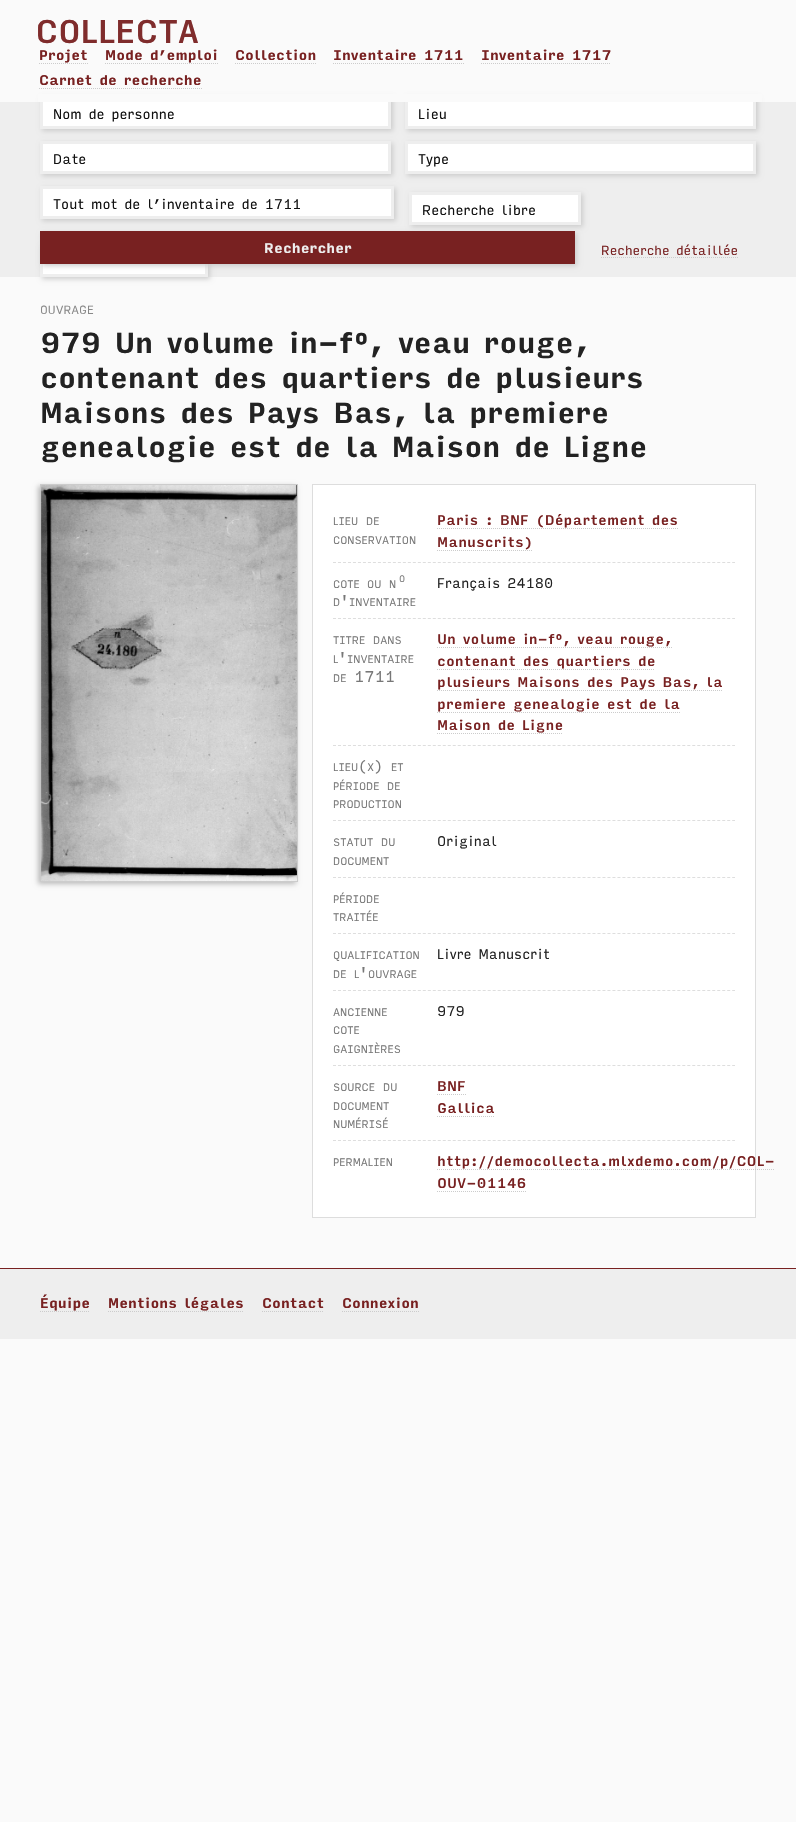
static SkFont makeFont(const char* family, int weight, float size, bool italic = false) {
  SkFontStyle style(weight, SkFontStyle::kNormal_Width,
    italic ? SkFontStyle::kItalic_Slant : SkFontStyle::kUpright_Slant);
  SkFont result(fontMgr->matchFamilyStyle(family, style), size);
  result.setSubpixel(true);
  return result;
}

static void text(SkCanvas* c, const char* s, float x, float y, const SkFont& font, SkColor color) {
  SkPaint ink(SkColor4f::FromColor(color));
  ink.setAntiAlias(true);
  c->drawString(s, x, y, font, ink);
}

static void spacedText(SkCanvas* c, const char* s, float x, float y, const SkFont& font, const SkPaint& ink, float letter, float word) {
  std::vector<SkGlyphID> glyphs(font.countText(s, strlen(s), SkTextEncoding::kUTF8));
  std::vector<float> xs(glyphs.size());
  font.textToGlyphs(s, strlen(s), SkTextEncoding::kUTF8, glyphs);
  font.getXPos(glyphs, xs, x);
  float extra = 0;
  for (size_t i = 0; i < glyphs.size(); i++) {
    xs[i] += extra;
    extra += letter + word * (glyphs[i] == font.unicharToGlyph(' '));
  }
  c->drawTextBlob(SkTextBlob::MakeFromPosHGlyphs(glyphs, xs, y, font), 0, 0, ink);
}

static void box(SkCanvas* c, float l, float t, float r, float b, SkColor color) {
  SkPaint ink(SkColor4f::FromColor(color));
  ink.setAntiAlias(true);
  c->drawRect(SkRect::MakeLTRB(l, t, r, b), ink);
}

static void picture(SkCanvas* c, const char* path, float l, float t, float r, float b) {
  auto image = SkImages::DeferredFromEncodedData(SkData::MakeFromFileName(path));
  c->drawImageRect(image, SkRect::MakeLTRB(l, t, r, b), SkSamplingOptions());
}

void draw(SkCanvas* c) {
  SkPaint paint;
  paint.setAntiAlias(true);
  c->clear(0xfffafafa);
  box(c, 0, 102, 796, 277, 0xffeeeeee);
  paint.setColor(0xffcccccc);
  paint.setMaskFilter(SkMaskFilter::MakeBlur(kNormal_SkBlurStyle, 2.5f));
  c->drawRect(SkRect::MakeLTRB(42, 98, 393, 131), paint);
  paint.setMaskFilter(nullptr);
  box(c, 43, 102, 388, 126, 0xffffffff);
  paint.setStyle(SkPaint::kStroke_Style);
  paint.setStrokeWidth(3);
  paint.setColor(0xffeeeeee);
  c->drawRect(SkRect::MakeLTRB(41.5f, 97.5f, 389.5f, 127.5f), paint);
  paint.setStyle(SkPaint::kFill_Style);
  paint.setColor(0xffcccccc);
  paint.setMaskFilter(SkMaskFilter::MakeBlur(kNormal_SkBlurStyle, 2.5f));
  c->drawRect(SkRect::MakeLTRB(407, 98, 758, 131), paint);
  paint.setMaskFilter(nullptr);
  box(c, 408, 102, 753, 126, 0xffffffff);
  paint.setStyle(SkPaint::kStroke_Style);
  paint.setColor(0xffeeeeee);
  c->drawRect(SkRect::MakeLTRB(406.5f, 97.5f, 754.5f, 127.5f), paint);
  box(c, 38, 94, 762, 102, 0xfffafafa);
  SkFont face1 = makeFont("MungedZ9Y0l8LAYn", 500, 31.5f);
  paint.setStyle(SkPaint::kFill_Style);
  paint.setColor(0xff7f2c2c);
  spacedText(c, "COLLECTA", 35, 43, face1, paint, -0.75f, 0);
  SkFont face2 = makeFont("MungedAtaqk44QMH", 700, 13.5f);
  text(c, "Projet", 39, 60, face2, 0xff782121);
  paint.setStyle(SkPaint::kStroke_Style);
  paint.setStrokeWidth(1);
  paint.setColor(0xffcccccc);
  paint.setPathEffect(SkDashPathEffect::Make({{1, 1}}, 0));
  c->drawPath(SkPathBuilder().moveTo(39, 63.5f).lineTo(88, 63.5f).detach(), paint);
  paint.setPathEffect(nullptr);
  text(c, "Mode d’emploi", 105, 60, face2, 0xff782121);
  paint.setPathEffect(SkDashPathEffect::Make({{1, 1}}, 0));
  c->drawPath(SkPathBuilder().moveTo(105, 63.5f).lineTo(218, 63.5f).detach(), paint);
  paint.setPathEffect(nullptr);
  text(c, "Collection", 235, 60, face2, 0xff782121);
  paint.setPathEffect(SkDashPathEffect::Make({{1, 1}}, 0));
  c->drawPath(SkPathBuilder().moveTo(235, 63.5f).lineTo(316, 63.5f).detach(), paint);
  paint.setPathEffect(nullptr);
  text(c, "Inventaire 1711", 333, 60, face2, 0xff782121);
  paint.setPathEffect(SkDashPathEffect::Make({{1, 1}}, 0));
  c->drawPath(SkPathBuilder().moveTo(333, 63.5f).lineTo(464, 63.5f).detach(), paint);
  paint.setPathEffect(nullptr);
  text(c, "Inventaire 1717", 481, 60, face2, 0xff782121);
  paint.setPathEffect(SkDashPathEffect::Make({{1, 1}}, 0));
  c->drawPath(SkPathBuilder().moveTo(481, 63.5f).lineTo(611, 63.5f).detach(), paint);
  paint.setPathEffect(nullptr);
  text(c, "Carnet de recherche", 39, 85, face2, 0xff782121);
  paint.setPathEffect(SkDashPathEffect::Make({{1, 1}}, 0));
  c->drawPath(SkPathBuilder().moveTo(39, 88.5f).lineTo(202, 88.5f).detach(), paint);
  paint.setPathEffect(nullptr);
  SkFont face3 = makeFont("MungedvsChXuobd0", 400, 13.5f);
  text(c, "Nom de personne", 53, 119, face3, 0xff111111);
  text(c, "Lieu", 418, 119, face3, 0xff111111);
  paint.setStyle(SkPaint::kFill_Style);
  paint.setMaskFilter(SkMaskFilter::MakeBlur(kNormal_SkBlurStyle, 2.5f));
  c->drawRect(SkRect::MakeLTRB(42, 143, 393, 176), paint);
  paint.setMaskFilter(nullptr);
  paint.setColor(0xffffffff);
  c->drawRect(SkRect::MakeLTRB(41.5f, 142.5f, 389.5f, 172.5f), paint);
  paint.setStyle(SkPaint::kStroke_Style);
  paint.setStrokeWidth(3);
  paint.setColor(0xffeeeeee);
  c->drawRect(SkRect::MakeLTRB(41.5f, 142.5f, 389.5f, 172.5f), paint);
  text(c, "Date", 53, 164, face3, 0xff111111);
  paint.setStyle(SkPaint::kFill_Style);
  paint.setColor(0xffcccccc);
  paint.setMaskFilter(SkMaskFilter::MakeBlur(kNormal_SkBlurStyle, 2.5f));
  c->drawRect(SkRect::MakeLTRB(407, 143, 758, 176), paint);
  paint.setMaskFilter(nullptr);
  paint.setColor(0xffffffff);
  c->drawRect(SkRect::MakeLTRB(406.5f, 142.5f, 754.5f, 172.5f), paint);
  paint.setStyle(SkPaint::kStroke_Style);
  paint.setColor(0xffeeeeee);
  c->drawRect(SkRect::MakeLTRB(406.5f, 142.5f, 754.5f, 172.5f), paint);
  text(c, "Type", 418, 164, face3, 0xff111111);
  paint.setStyle(SkPaint::kFill_Style);
  paint.setColor(0xffcccccc);
  paint.setMaskFilter(SkMaskFilter::MakeBlur(kNormal_SkBlurStyle, 2.5f));
  c->drawRect(SkRect::MakeLTRB(42, 188, 396, 221), paint);
  paint.setMaskFilter(nullptr);
  paint.setColor(0xffffffff);
  c->drawRect(SkRect::MakeLTRB(41.5f, 187.5f, 392.5f, 217.5f), paint);
  paint.setStyle(SkPaint::kStroke_Style);
  paint.setColor(0xffeeeeee);
  c->drawRect(SkRect::MakeLTRB(41.5f, 187.5f, 392.5f, 217.5f), paint);
  text(c, "Tout mot de l’inventaire de 1711", 53, 209, face3, 0xff111111);
  paint.setStyle(SkPaint::kFill_Style);
  paint.setColor(0xffcccccc);
  paint.setMaskFilter(SkMaskFilter::MakeBlur(kNormal_SkBlurStyle, 2.5f));
  c->drawRect(SkRect::MakeLTRB(411, 194, 583, 227), paint);
  paint.setMaskFilter(nullptr);
  paint.setColor(0xffffffff);
  c->drawRect(SkRect::MakeLTRB(410.5f, 193.5f, 579.5f, 223.5f), paint);
  paint.setStyle(SkPaint::kStroke_Style);
  paint.setColor(0xffeeeeee);
  c->drawRect(SkRect::MakeLTRB(410.5f, 193.5f, 579.5f, 223.5f), paint);
  text(c, "Recherche libre", 422, 215, face3, 0xff111111);
  paint.setStyle(SkPaint::kFill_Style);
  paint.setColor(0xffcccccc);
  paint.setMaskFilter(SkMaskFilter::MakeBlur(kNormal_SkBlurStyle, 2.5f));
  c->drawRect(SkRect::MakeLTRB(42, 246, 210, 279), paint);
  paint.setMaskFilter(nullptr);
  box(c, 43, 264, 205, 274, 0xffffffff);
  paint.setStyle(SkPaint::kStroke_Style);
  paint.setColor(0xffeeeeee);
  c->drawRect(SkRect::MakeLTRB(41.5f, 245.5f, 206.5f, 275.5f), paint);
  paint.setStyle(SkPaint::kFill_Style);
  paint.setColor(0xffcccccc);
  paint.setMaskFilter(SkMaskFilter::MakeBlur(kNormal_SkBlurStyle, 2.5f));
  c->drawRect(SkRect::MakeLTRB(42, 233, 577, 266), paint);
  paint.setMaskFilter(nullptr);
  box(c, 40, 231, 575, 264, 0xff782121);
  text(c, "Rechercher", 264, 253, face2, 0xffeeeeee);
  SkFont face4 = makeFont("MungedvsChXuobd0", 400, 12.75f);
  text(c, "Recherche détaillée", 601, 255, face4, 0xff782121);
  paint.setStyle(SkPaint::kStroke_Style);
  paint.setStrokeWidth(1);
  paint.setPathEffect(SkDashPathEffect::Make({{1, 1}}, 0));
  c->drawPath(SkPathBuilder().moveTo(601, 257.5f).lineTo(738, 257.5f).detach(), paint);
  paint.setPathEffect(nullptr);
  SkFont face5 = makeFont("MungedvsChXuobd0", 400, 11.5f);
  text(c, "OUVRAGE", 40, 314, face5, 0xff888888);
  SkFont face6 = makeFont("MungedAtaqk44QMH", 700, 27.75f);
  paint.setStyle(SkPaint::kFill_Style);
  paint.setColor(0xff222222);
  spacedText(c, "979 Un volume in-f°, veau rouge,", 40, 353, face6, paint, -0.3f, 0);
  spacedText(c, "contenant des quartiers de plusieurs", 40, 388, face6, paint, -0.3f, 0);
  spacedText(c, "Maisons des Pays Bas, la premiere", 40, 423, face6, paint, -0.3f, 0);
  spacedText(c, "genealogie est de la Maison de Ligne", 40, 457, face6, paint, -0.3f, 0);
  paint.setColor(0xffbbbbbb);
  paint.setMaskFilter(SkMaskFilter::MakeBlur(kNormal_SkBlurStyle, 2.5f));
  c->drawRect(SkRect::MakeLTRB(38, 486, 296, 884), paint);
  paint.setMaskFilter(nullptr);
  paint.setStyle(SkPaint::kStroke_Style);
  paint.setColor(0xffcccccc);
  c->drawRect(SkRect::MakeLTRB(40.5f, 484.5f, 297.5f, 881.5f), paint);
  picture(c, "img_01.png", 40, 485, 297, 881);
  paint.setStyle(SkPaint::kFill_Style);
  paint.setColor(0xffffffff);
  c->drawRect(SkRect::MakeLTRB(312.5f, 484.5f, 755.5f, 1217.5f), paint);
  paint.setStyle(SkPaint::kStroke_Style);
  paint.setColor(0xffdddddd);
  c->drawRect(SkRect::MakeLTRB(312.5f, 484.5f, 755.5f, 1217.5f), paint);
  paint.setColor(0xffdedede);
  paint.setPathEffect(SkDashPathEffect::Make({{3, 1.99f}}, 0));
  c->drawPath(SkPathBuilder().moveTo(333, 562.5f).lineTo(735, 562.5f).detach(), paint);
  paint.setPathEffect(nullptr);
  SkFont face7 = makeFont("MungedvsChXuobd0", 400, 10.5f);
  text(c, "LIEU", 333, 525, face7, 0xff777777);
  text(c, "DE", 366, 525, face7, 0xff777777);
  text(c, "CONSERVATION", 333, 544, face7, 0xff777777);
  SkFont face8 = makeFont("MungedZ9Y0l8LAYn", 500, 13.5f);
  text(c, "Paris : BNF (Département des", 437, 525, face8, 0xff782121);
  paint.setColor(0xffcccccc);
  paint.setPathEffect(SkDashPathEffect::Make({{1, 1}}, 0));
  c->drawPath(SkPathBuilder().moveTo(437, 528.5f).lineTo(678, 528.5f).detach(), paint);
  paint.setPathEffect(nullptr);
  text(c, "Manuscrits)", 437, 547, face8, 0xff782121);
  paint.setPathEffect(SkDashPathEffect::Make({{1, 1}}, 0));
  c->drawPath(SkPathBuilder().moveTo(437, 550.5f).lineTo(532, 550.5f).detach(), paint);
  paint.setPathEffect(nullptr);
  paint.setColor(0xffdedede);
  paint.setPathEffect(SkDashPathEffect::Make({{3, 1.99f}}, 0));
  c->drawPath(SkPathBuilder().moveTo(333, 618.5f).lineTo(735, 618.5f).detach(), paint);
  paint.setPathEffect(nullptr);
  SkFont face9 = makeFont("MungedvsChXuobd0", 400, 9);
  text(c, "O", 399, 582, face9, 0xff777777);
  text(c, "COTE", 333, 588, face7, 0xff777777);
  text(c, "OU", 367, 588, face7, 0xff777777);
  text(c, "N", 389, 588, face7, 0xff777777);
  text(c, "D", 333, 606, face7, 0xff777777);
  SkFont face10 = makeFont("MungedvsChXuobd0", 400, 15);
  text(c, "'", 340, 606, face10, 0xff777777);
  text(c, "INVENTAIRE", 349, 606, face7, 0xff777777);
  text(c, "Français 24180", 437, 588, face3, 0xff222222);
  paint.setPathEffect(SkDashPathEffect::Make({{3, 1.99f}}, 0));
  c->drawPath(SkPathBuilder().moveTo(333, 745.5f).lineTo(735, 745.5f).detach(), paint);
  paint.setPathEffect(nullptr);
  text(c, "TITRE", 333, 644, face7, 0xff777777);
  text(c, "DANS", 373, 644, face7, 0xff777777);
  text(c, "L", 333, 663, face7, 0xff777777);
  text(c, "'", 338, 663, face10, 0xff777777);
  text(c, "INVENTAIRE", 347, 663, face7, 0xff777777);
  text(c, "DE", 333, 682, face7, 0xff777777);
  text(c, "1711", 354, 682, face10, 0xff777777);
  text(c, "Un volume in-f°, veau rouge,", 437, 644, face8, 0xff782121);
  paint.setColor(0xffcccccc);
  paint.setPathEffect(SkDashPathEffect::Make({{1, 1}}, 0));
  c->drawPath(SkPathBuilder().moveTo(437, 647.5f).lineTo(672, 647.5f).detach(), paint);
  paint.setPathEffect(nullptr);
  text(c, "contenant des quartiers de", 437, 666, face8, 0xff782121);
  paint.setPathEffect(SkDashPathEffect::Make({{1, 1}}, 0));
  c->drawPath(SkPathBuilder().moveTo(437, 669.5f).lineTo(655, 669.5f).detach(), paint);
  paint.setPathEffect(nullptr);
  text(c, "plusieurs Maisons des Pays Bas, la", 437, 687, face8, 0xff782121);
  paint.setPathEffect(SkDashPathEffect::Make({{1, 1}}, 0));
  c->drawPath(SkPathBuilder().moveTo(437, 690.5f).lineTo(723, 690.5f).detach(), paint);
  paint.setPathEffect(nullptr);
  text(c, "premiere genealogie est de la", 437, 709, face8, 0xff782121);
  paint.setPathEffect(SkDashPathEffect::Make({{1, 1}}, 0));
  c->drawPath(SkPathBuilder().moveTo(437, 712.5f).lineTo(680, 712.5f).detach(), paint);
  paint.setPathEffect(nullptr);
  text(c, "Maison de Ligne", 437, 730, face8, 0xff782121);
  paint.setPathEffect(SkDashPathEffect::Make({{1, 1}}, 0));
  c->drawPath(SkPathBuilder().moveTo(437, 733.5f).lineTo(563, 733.5f).detach(), paint);
  paint.setPathEffect(nullptr);
  paint.setColor(0xffdedede);
  paint.setPathEffect(SkDashPathEffect::Make({{3, 1.99f}}, 0));
  c->drawPath(SkPathBuilder().moveTo(333, 820.5f).lineTo(735, 820.5f).detach(), paint);
  paint.setPathEffect(nullptr);
  text(c, "LIEU", 333, 771, face7, 0xff777777);
  text(c, "(", 358, 771, face10, 0xff777777);
  text(c, "X", 367, 771, face7, 0xff777777);
  text(c, ")", 374, 771, face10, 0xff777777);
  text(c, "ET", 391, 771, face7, 0xff777777);
  text(c, "PÉRIODE", 333, 790, face7, 0xff777777);
  text(c, "DE", 387, 790, face7, 0xff777777);
  text(c, "PRODUCTION", 333, 808, face7, 0xff777777);
  paint.setPathEffect(SkDashPathEffect::Make({{3, 1.99f}}, 0));
  c->drawPath(SkPathBuilder().moveTo(333, 877.5f).lineTo(735, 877.5f).detach(), paint);
  paint.setPathEffect(nullptr);
  text(c, "STATUT", 333, 846, face7, 0xff777777);
  text(c, "DU", 381, 846, face7, 0xff777777);
  text(c, "DOCUMENT", 333, 865, face7, 0xff777777);
  text(c, "Original", 437, 846, face3, 0xff222222);
  paint.setPathEffect(SkDashPathEffect::Make({{3, 1.99f}}, 0));
  c->drawPath(SkPathBuilder().moveTo(333, 933.5f).lineTo(735, 933.5f).detach(), paint);
  paint.setPathEffect(nullptr);
  text(c, "PÉRIODE", 333, 903, face7, 0xff777777);
  text(c, "TRAITÉE", 333, 921, face7, 0xff777777);
  paint.setPathEffect(SkDashPathEffect::Make({{3, 1.99f}}, 0));
  c->drawPath(SkPathBuilder().moveTo(333, 990.5f).lineTo(735, 990.5f).detach(), paint);
  paint.setPathEffect(nullptr);
  text(c, "QUALIFICATION", 333, 959, face7, 0xff777777);
  text(c, "DE", 333, 978, face7, 0xff777777);
  text(c, "L", 354, 978, face7, 0xff777777);
  text(c, "'", 359, 978, face10, 0xff777777);
  text(c, "OUVRAGE", 368, 978, face7, 0xff777777);
  text(c, "Livre Manuscrit", 437, 959, face3, 0xff222222);
  paint.setPathEffect(SkDashPathEffect::Make({{3, 1.99f}}, 0));
  c->drawPath(SkPathBuilder().moveTo(333, 1065.5f).lineTo(735, 1065.5f).detach(), paint);
  paint.setPathEffect(nullptr);
  text(c, "ANCIENNE", 333, 1016, face7, 0xff777777);
  text(c, "COTE", 333, 1034, face7, 0xff777777);
  text(c, "GAIGNIÈRES", 333, 1053, face7, 0xff777777);
  text(c, "979", 437, 1016, face3, 0xff222222);
  paint.setPathEffect(SkDashPathEffect::Make({{3, 1.99f}}, 0));
  c->drawPath(SkPathBuilder().moveTo(333, 1140.5f).lineTo(735, 1140.5f).detach(), paint);
  paint.setPathEffect(nullptr);
  text(c, "SOURCE", 333, 1091, face7, 0xff777777);
  text(c, "DU", 383, 1091, face7, 0xff777777);
  text(c, "DOCUMENT", 333, 1110, face7, 0xff777777);
  text(c, "NUMÉRISÉ", 333, 1128, face7, 0xff777777);
  text(c, "BNF", 437, 1091, face8, 0xff782121);
  paint.setColor(0xffcccccc);
  paint.setPathEffect(SkDashPathEffect::Make({{1, 1}}, 0));
  c->drawPath(SkPathBuilder().moveTo(437, 1094.5f).lineTo(466, 1094.5f).detach(), paint);
  paint.setPathEffect(nullptr);
  text(c, "Gallica", 437, 1113, face8, 0xff782121);
  paint.setPathEffect(SkDashPathEffect::Make({{1, 1}}, 0));
  c->drawPath(SkPathBuilder().moveTo(437, 1116.5f).lineTo(495, 1116.5f).detach(), paint);
  paint.setPathEffect(nullptr);
  text(c, "PERMALIEN", 333, 1166, face7, 0xff777777);
  text(c, "http://democollecta.mlxdemo.com/p/COL-", 437, 1166, face8, 0xff782121);
  paint.setPathEffect(SkDashPathEffect::Make({{1, 1}}, 0));
  c->drawPath(SkPathBuilder().moveTo(437, 1169.5f).lineTo(774, 1169.5f).detach(), paint);
  paint.setPathEffect(nullptr);
  text(c, "OUV-01146", 437, 1188, face8, 0xff782121);
  paint.setPathEffect(SkDashPathEffect::Make({{1, 1}}, 0));
  c->drawPath(SkPathBuilder().moveTo(437, 1191.5f).lineTo(526, 1191.5f).detach(), paint);
  paint.setPathEffect(nullptr);
  box(c, 0, 1269, 796, 1339, 0xffeeeeee);
  box(c, 0, 1268, 796, 1269, 0xff782121);
  text(c, "Équipe", 40, 1308, face2, 0xff782121);
  paint.setPathEffect(SkDashPathEffect::Make({{1, 1}}, 0));
  c->drawPath(SkPathBuilder().moveTo(40, 1311.5f).lineTo(90, 1311.5f).detach(), paint);
  paint.setPathEffect(nullptr);
  text(c, "Mentions légales", 108, 1308, face2, 0xff782121);
  paint.setPathEffect(SkDashPathEffect::Make({{1, 1}}, 0));
  c->drawPath(SkPathBuilder().moveTo(108, 1311.5f).lineTo(244, 1311.5f).detach(), paint);
  paint.setPathEffect(nullptr);
  text(c, "Contact", 262, 1308, face2, 0xff782121);
  paint.setPathEffect(SkDashPathEffect::Make({{1, 1}}, 0));
  c->drawPath(SkPathBuilder().moveTo(262, 1311.5f).lineTo(324, 1311.5f).detach(), paint);
  paint.setPathEffect(nullptr);
  text(c, "Connexion", 342, 1308, face2, 0xff782121);
  paint.setPathEffect(SkDashPathEffect::Make({{1, 1}}, 0));
  c->drawPath(SkPathBuilder().moveTo(342, 1311.5f).lineTo(419, 1311.5f).detach(), paint);
  paint.setPathEffect(nullptr);
}
